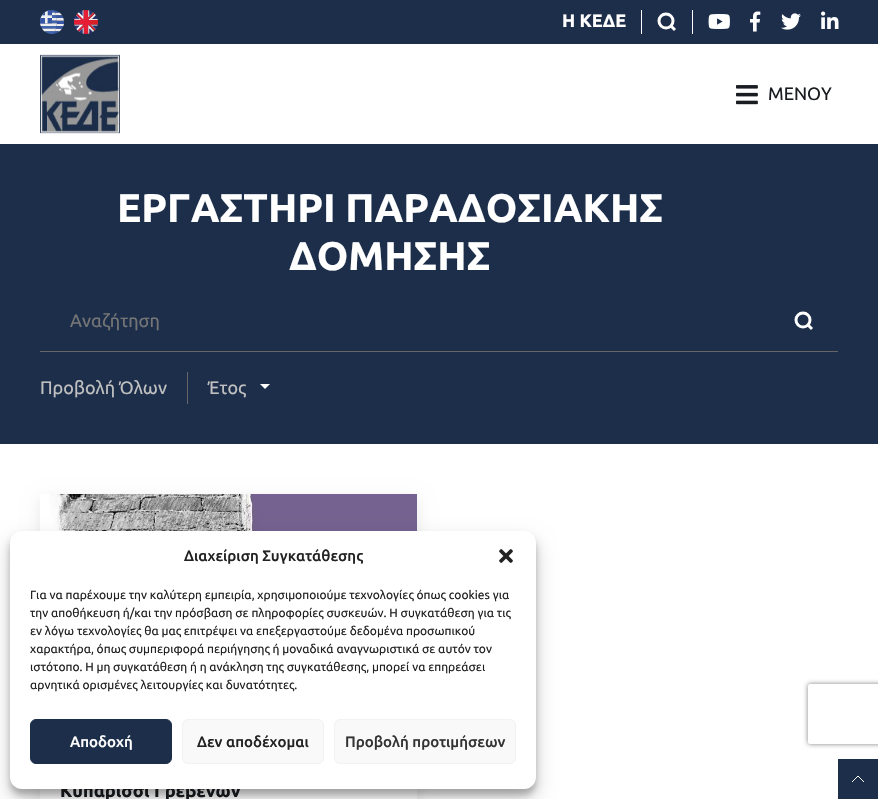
static SkFont makeFont(const char* family, int weight, float size, bool italic = false) {
  SkFontStyle style(weight, SkFontStyle::kNormal_Width,
    italic ? SkFontStyle::kItalic_Slant : SkFontStyle::kUpright_Slant);
  SkFont result(fontMgr->matchFamilyStyle(family, style), size);
  result.setSubpixel(true);
  return result;
}

static void text(SkCanvas* c, const char* s, float x, float y, const SkFont& font, SkColor color) {
  SkPaint ink(SkColor4f::FromColor(color));
  ink.setAntiAlias(true);
  c->drawString(s, x, y, font, ink);
}

static void box(SkCanvas* c, float l, float t, float r, float b, SkColor color) {
  SkPaint ink(SkColor4f::FromColor(color));
  ink.setAntiAlias(true);
  c->drawRect(SkRect::MakeLTRB(l, t, r, b), ink);
}

static void roundBox(SkCanvas* c, float l, float t, float r, float b, float radius, SkColor color) {
  SkPaint ink(SkColor4f::FromColor(color));
  ink.setAntiAlias(true);
  c->drawRoundRect(SkRect::MakeLTRB(l, t, r, b), radius, radius, ink);
}

static void picture(SkCanvas* c, const char* path, float l, float t, float r, float b) {
  auto image = SkImages::DeferredFromEncodedData(SkData::MakeFromFileName(path));
  c->drawImageRect(image, SkRect::MakeLTRB(l, t, r, b), SkSamplingOptions());
}

void draw(SkCanvas* c) {
  SkPaint paint;
  paint.setAntiAlias(true);
  c->clear(0xffffffff);
  box(c, 0, 0, 878, 44, 0xff1c2e4a);
  picture(c, "img_01.png", 40, 10, 64, 34);
  picture(c, "img_02.png", 74, 10, 98, 34);
  SkFont face1 = makeFont("Ubuntu", 700, 18);
  text(c, "Η ΚΕΔΕ", 562, 27, face1, 0xffffffff);
  box(c, 692, 10, 693, 34, 0xffffffff);
  box(c, 641, 10, 642, 34, 0xffffffff);
  paint.setStyle(SkPaint::kStroke_Style);
  paint.setStrokeWidth(3);
  paint.setColor(0xffffffff);
  c->drawCircle(666, 21, 7, paint);
  c->drawPath(SkPathBuilder().moveTo(671, 26).lineTo(675, 30).close().detach(), paint);
  picture(c, "img_03.png", 708, 14, 730, 29);
  picture(c, "img_04.png", 750, 11, 761, 32);
  picture(c, "img_05.png", 781, 13, 801, 30);
  picture(c, "img_06.png", 821, 11, 839, 29);
  picture(c, "img_07.png", 40, 54, 120, 134);
  picture(c, "img_08.png", 736, 85, 758, 105);
  SkFont face2 = makeFont("Ubuntu", 400, 18);
  text(c, "ΜΕΝΟΥ", 768, 100, face2, 0xff191c20);
  box(c, 0, 144, 878, 444, 0xff1c2e4a);
  SkFont face3 = makeFont("Ubuntu", 700, 40);
  text(c, "ΕΡΓΑΣΤΗΡΙ ΠΑΡΑΔΟΣΙΑΚΗΣ", 117, 222, face3, 0xffffffff);
  text(c, "ΔΟΜΗΣΗΣ", 289, 270, face3, 0xffffffff);
  box(c, 40, 351, 838, 352, 0xff666666);
  text(c, "Αναζήτηση", 70, 327, face2, 0xff757575);
  c->drawCircle(803, 320, 7, paint);
  c->drawPath(SkPathBuilder().moveTo(808, 325).lineTo(812, 329).close().detach(), paint);
  text(c, "Προβολή Όλων", 40, 394, face2, 0xffc0c0c0);
  box(c, 187, 372, 188, 404, 0xff666666);
  text(c, "Έτος", 208, 394, face2, 0xffc0c0c0);
  paint.setStyle(SkPaint::kFill_Style);
  c->drawPath(SkPathBuilder().moveTo(260, 384).lineTo(270, 384).lineTo(265, 389).close().detach(), paint);
  c->save();
  c->clipPath(SkPathBuilder(SkPathFillType::kEvenOdd).moveTo(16, 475).lineTo(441, 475).lineTo(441, 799).lineTo(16, 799).close().moveTo(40, 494).lineTo(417, 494).lineTo(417, 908).lineTo(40, 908).close().detach(), true);
  paint.setColor(0xffe8e8e8);
  paint.setMaskFilter(SkMaskFilter::MakeBlur(kNormal_SkBlurStyle, 7.5f));
  c->drawRect(SkRect::MakeLTRB(40, 499, 417, 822), paint);
  paint.setMaskFilter(nullptr);
  c->restore();
  picture(c, "img_09.png", 49, 494, 417, 531);
  text(c, "Κυπαρίσσι Γρεβενών", 60, 797, face1, 0xff191c20);
  paint.setColor(0x3b000000);
  paint.setMaskFilter(SkMaskFilter::MakeBlur(kNormal_SkBlurStyle, 3));
  c->drawRoundRect(SkRect::MakeLTRB(10, 537, 536, 795), 12, 12, paint);
  paint.setMaskFilter(nullptr);
  paint.setColor(0x30000000);
  paint.setMaskFilter(SkMaskFilter::MakeBlur(kNormal_SkBlurStyle, 10));
  c->drawRoundRect(SkRect::MakeLTRB(10, 541, 536, 799), 12, 12, paint);
  paint.setMaskFilter(nullptr);
  roundBox(c, 10, 531, 536, 789, 12, 0xffffffff);
  SkFont face4 = makeFont("Ubuntu", 500, 15);
  text(c, "Διαχείριση Συγκατάθεσης", 184, 561, face4, 0xff222222);
  picture(c, "img_10.png", 499, 549, 513, 563);
  SkFont face5 = makeFont("Ubuntu", 400, 12);
  text(c, "Για να παρέχουμε την καλύτερη εμπειρία, χρησιμοποιούμε τεχνολογίες όπως cookies για", 30, 599, face5, 0xff222222);
  text(c, "την αποθήκευση ή/και την πρόσβαση σε πληροφορίες συσκευών. Η συγκατάθεση για τις", 30, 617, face5, 0xff222222);
  text(c, "εν λόγω τεχνολογίες θα μας επιτρέψει να επεξεργαστούμε δεδομένα προσωπικού", 30, 635, face5, 0xff222222);
  text(c, "χαρακτήρα, όπως συμπεριφορά περιήγησης ή μοναδικά αναγνωριστικά σε αυτόν τον", 30, 653, face5, 0xff222222);
  text(c, "ιστότοπο. Η μη συγκατάθεση ή η ανάκληση της συγκατάθεσης, μπορεί να επηρεάσει", 30, 671, face5, 0xff222222);
  text(c, "αρνητικά ορισμένες λειτουργίες και δυνατότητες.", 30, 689, face5, 0xff222222);
  paint.setColor(0xff1c2e4a);
  c->drawRoundRect(SkRect::MakeLTRB(30.5f, 719.5f, 171.5f, 763.5f), 5.5f, 5.5f, paint);
  paint.setStyle(SkPaint::kStroke_Style);
  paint.setStrokeWidth(1);
  c->drawRoundRect(SkRect::MakeLTRB(30.5f, 719.5f, 171.5f, 763.5f), 5.5f, 5.5f, paint);
  text(c, "Αποδοχή", 70, 747, face4, 0xffffffff);
  paint.setStyle(SkPaint::kFill_Style);
  paint.setColor(0xfff9f9f9);
  c->drawRoundRect(SkRect::MakeLTRB(182.5f, 719.5f, 323.5f, 763.5f), 5.5f, 5.5f, paint);
  paint.setStyle(SkPaint::kStroke_Style);
  paint.setColor(0xfff2f2f2);
  c->drawRoundRect(SkRect::MakeLTRB(182.5f, 719.5f, 323.5f, 763.5f), 5.5f, 5.5f, paint);
  text(c, "Δεν αποδέχομαι", 197, 747, face4, 0xff222222);
  paint.setStyle(SkPaint::kFill_Style);
  paint.setColor(0xfff9f9f9);
  c->drawRoundRect(SkRect::MakeLTRB(334.5f, 719.5f, 515.5f, 763.5f), 5.5f, 5.5f, paint);
  paint.setStyle(SkPaint::kStroke_Style);
  paint.setColor(0xfff2f2f2);
  c->drawRoundRect(SkRect::MakeLTRB(334.5f, 719.5f, 515.5f, 763.5f), 5.5f, 5.5f, paint);
  text(c, "Προβολή προτιμήσεων", 345, 747, face4, 0xff333333);
  c->save();
  c->clipPath(SkPathBuilder(SkPathFillType::kEvenOdd).moveTo(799, 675).lineTo(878, 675).lineTo(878, 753).lineTo(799, 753).close().moveTo(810, 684).lineTo(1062, 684).cubicTo(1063, 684, 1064, 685, 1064, 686).lineTo(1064, 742).cubicTo(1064, 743, 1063, 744, 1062, 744).lineTo(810, 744).cubicTo(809, 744, 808, 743, 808, 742).lineTo(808, 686).cubicTo(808, 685, 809, 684, 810, 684).close().detach(), true);
  paint.setStyle(SkPaint::kFill_Style);
  paint.setColor(0xff808080);
  paint.setMaskFilter(SkMaskFilter::MakeBlur(kNormal_SkBlurStyle, 2.5f));
  c->drawRoundRect(SkRect::MakeLTRB(808, 684, 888, 744), 2, 2, paint);
  paint.setMaskFilter(nullptr);
  c->restore();
  box(c, 838, 759, 878, 799, 0xff1c2e4a);
  paint.setStyle(SkPaint::kStroke_Style);
  paint.setColor(0xffffffff);
  c->drawPath(SkPathBuilder().moveTo(852, 782).lineTo(858, 776).lineTo(864, 782).detach(), paint);
}
